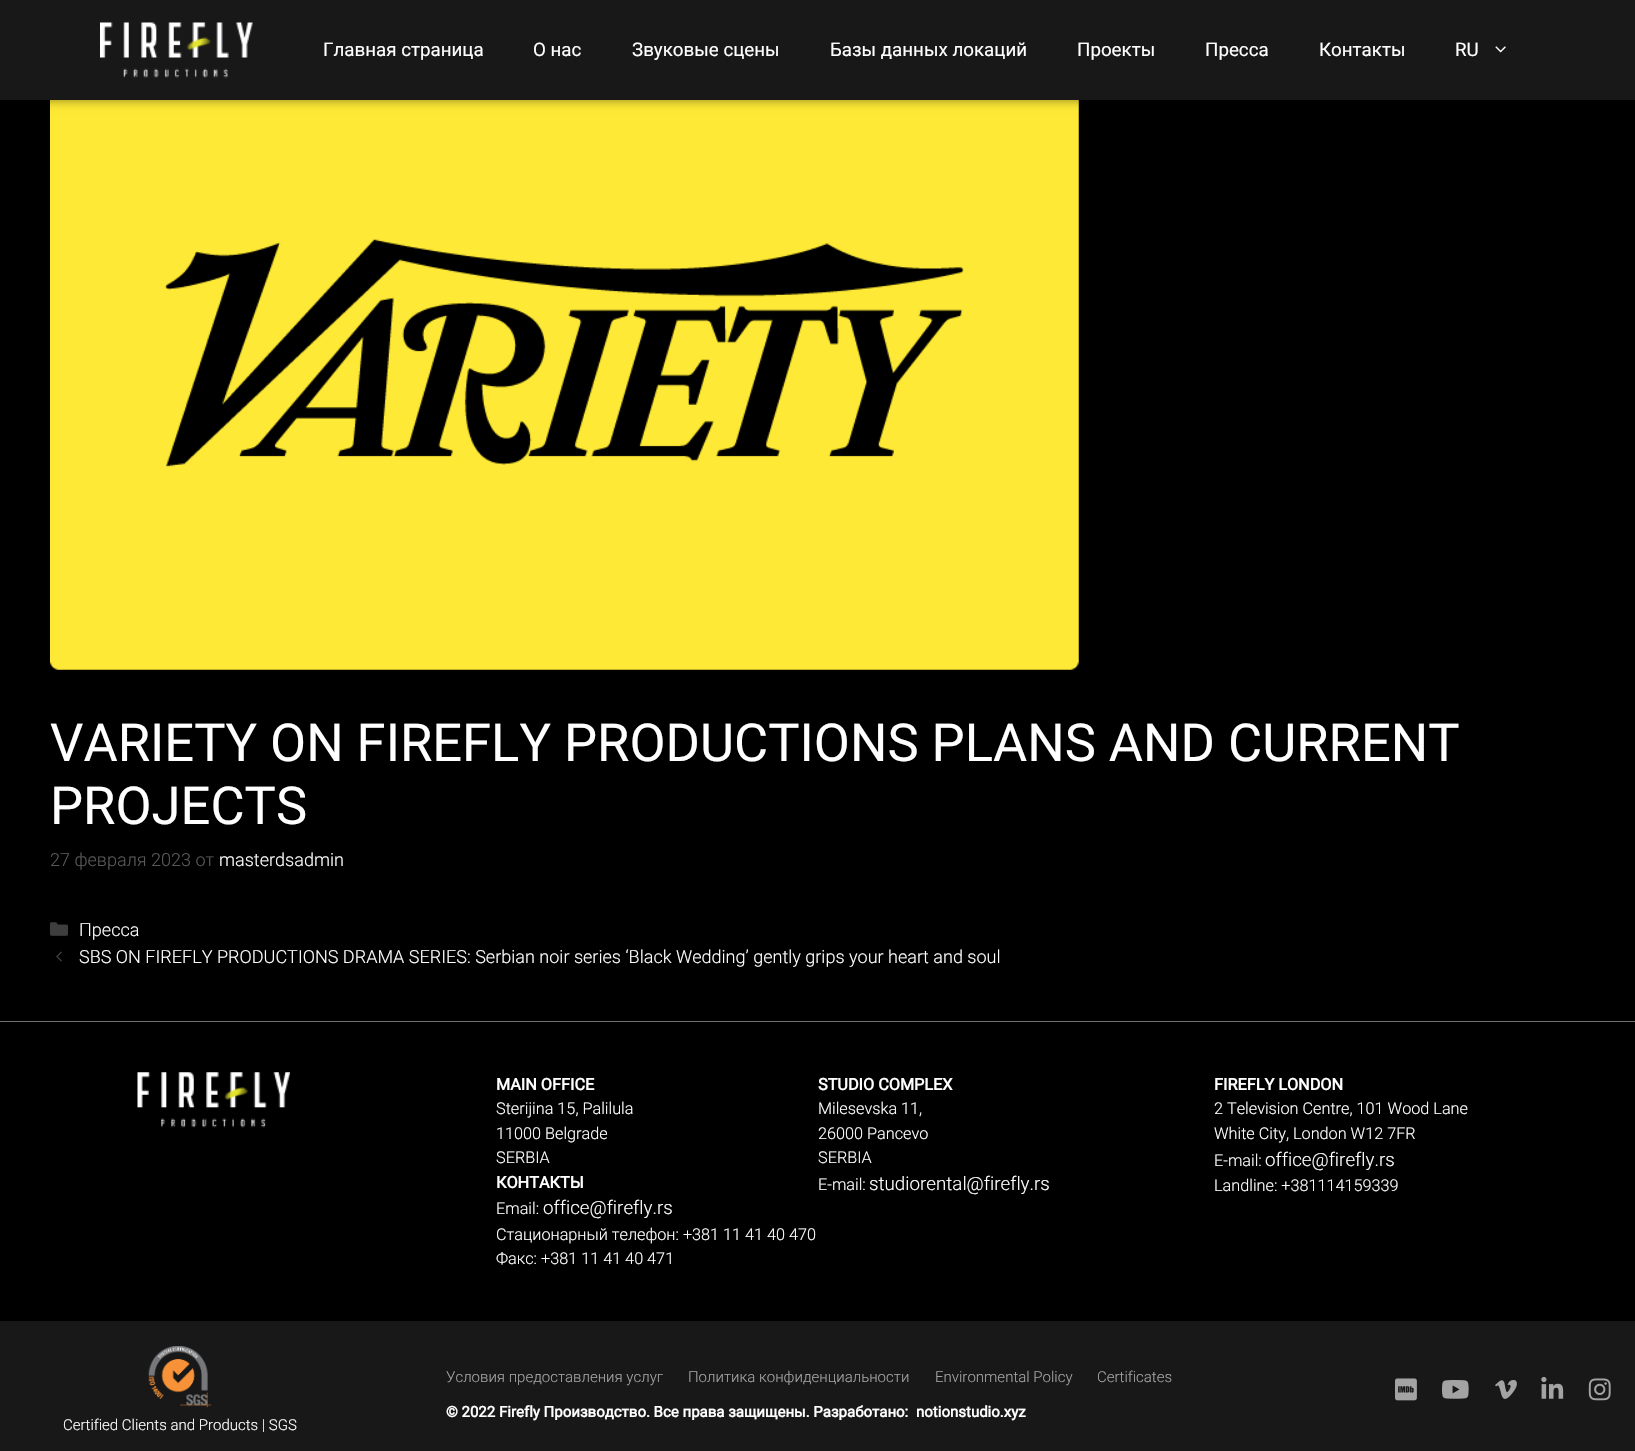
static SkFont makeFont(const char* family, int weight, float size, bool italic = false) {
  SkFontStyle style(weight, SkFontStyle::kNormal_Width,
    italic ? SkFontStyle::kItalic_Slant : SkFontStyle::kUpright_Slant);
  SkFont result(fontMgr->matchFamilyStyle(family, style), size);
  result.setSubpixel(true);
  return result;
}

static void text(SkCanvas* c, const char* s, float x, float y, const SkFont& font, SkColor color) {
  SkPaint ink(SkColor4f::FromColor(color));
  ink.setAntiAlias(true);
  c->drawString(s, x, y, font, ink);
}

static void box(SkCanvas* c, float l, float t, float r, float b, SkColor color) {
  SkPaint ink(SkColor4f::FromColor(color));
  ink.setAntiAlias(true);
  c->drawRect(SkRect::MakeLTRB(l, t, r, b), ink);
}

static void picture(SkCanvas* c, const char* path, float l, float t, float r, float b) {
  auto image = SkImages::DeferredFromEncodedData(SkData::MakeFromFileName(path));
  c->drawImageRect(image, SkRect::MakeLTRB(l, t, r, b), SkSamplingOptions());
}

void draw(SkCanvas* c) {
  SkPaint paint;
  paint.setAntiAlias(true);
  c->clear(0xff000000);
  picture(c, "img_03.png", 50, 100, 1079, 670);
  paint.setColor(0x73000000);
  paint.setMaskFilter(SkMaskFilter::MakeBlur(kNormal_SkBlurStyle, 5));
  c->drawRect(SkRect::MakeLTRB(0, 0, 1635, 100), paint);
  paint.setMaskFilter(nullptr);
  box(c, 0, 0, 1635, 100, 0xff181818);
  picture(c, "img_01.png", 100, 22, 253, 78);
  SkFont face1 = makeFont("Roboto", 400, 18.75f);
  text(c, "Главная страница", 323, 56, face1, 0xffffffff);
  text(c, "О нас", 533, 56, face1, 0xffffffff);
  text(c, "Звуковые сцены", 632, 56, face1, 0xffffffff);
  text(c, "Базы данных локаций", 830, 56, face1, 0xffffffff);
  text(c, "Проекты", 1077, 56, face1, 0xffffffff);
  text(c, "Пресса", 1205, 56, face1, 0xffffffff);
  text(c, "Контакты", 1319, 56, face1, 0xffffffff);
  text(c, "RU", 1455, 56, face1, 0xffffffff);
  picture(c, "img_02.png", 1495, 46, 1506, 53);
  SkFont face2 = makeFont("Roboto", 400, 52.5f);
  text(c, "VARIETY ON FIREFLY PRODUCTIONS PLANS AND CURRENT", 50, 761, face2, 0xffffffff);
  text(c, "PROJECTS", 50, 824, face2, 0xffffffff);
  SkFont face3 = makeFont("Roboto", 300, 18.05f);
  text(c, "27 февраля 2023 от", 50, 866, face3, 0xff595959);
  text(c, "masterdsadmin", 219, 866, face3, 0xffffffff);
  picture(c, "img_04.png", 50, 922, 68, 936);
  text(c, "Пресса", 79, 936, face3, 0xffffffff);
  picture(c, "img_05.png", 56, 951, 62, 962);
  text(c, "SBS ON FIREFLY PRODUCTIONS DRAMA SERIES: Serbian noir series ‘Black Wedding’ gently grips your heart and soul", 79, 963, face3, 0xffffffff);
  box(c, 0, 1021, 1635, 1022, 0xff707070);
  picture(c, "img_06.png", 137, 1072, 290, 1128);
  SkFont face4 = makeFont("Roboto", 700, 16.25f);
  text(c, "MAIN OFFICE", 496, 1090, face4, 0xffffffff);
  SkFont face5 = makeFont("Roboto", 300, 16.25f);
  text(c, "Sterijina 15, Palilula", 496, 1114, face5, 0xffffffff);
  text(c, "11000 Belgrade", 496, 1139, face5, 0xffffffff);
  text(c, "SERBIA", 496, 1163, face5, 0xffffffff);
  text(c, "КОНТАКТЫ", 496, 1188, face4, 0xffffffff);
  text(c, "Email:", 496, 1214, face5, 0xffffffff);
  SkFont face6 = makeFont("Roboto", 300, 18.75f);
  text(c, "office@firefly.rs", 543, 1214, face6, 0xffffffff);
  text(c, "Стационарный телефон: +381 11 41 40 470", 496, 1240, face5, 0xffffffff);
  text(c, "Факс: +381 11 41 40 471", 496, 1264, face5, 0xffffffff);
  text(c, "STUDIO COMPLEX", 818, 1090, face4, 0xffffffff);
  text(c, "Milesevska 11,", 818, 1114, face5, 0xffffffff);
  text(c, "26000 Pancevo", 818, 1139, face5, 0xffffffff);
  text(c, "SERBIA", 818, 1163, face5, 0xffffffff);
  text(c, "E-mail:", 818, 1190, face5, 0xffffffff);
  text(c, "studiorental@firefly.rs", 869, 1190, face6, 0xffffffff);
  text(c, "FIREFLY LONDON", 1214, 1090, face4, 0xffffffff);
  text(c, "2 Television Centre, 101 Wood Lane", 1214, 1114, face5, 0xffffffff);
  text(c, "White City, London W12 7FR", 1214, 1139, face5, 0xffffffff);
  text(c, "E-mail:", 1214, 1166, face5, 0xffffffff);
  text(c, "office@firefly.rs", 1265, 1166, face6, 0xffffffff);
  text(c, "Landline: +381114159339", 1214, 1191, face5, 0xffffffff);
  box(c, 0, 1321, 1635, 1451, 0xff181818);
  SkFont face7 = makeFont("Roboto", 300, 15);
  text(c, "Условия предоставления услуг", 446, 1382, face7, 0xffa3a3a3);
  text(c, "Политика конфиденциальности", 688, 1382, face7, 0xffa3a3a3);
  text(c, "Environmental Policy", 935, 1382, face7, 0xffa3a3a3);
  text(c, "Certificates", 1097, 1382, face7, 0xffa3a3a3);
  SkFont face8 = makeFont("Roboto", 700, 15);
  text(c, "© 2022 Firefly Производство. Все права защищены. Разработано:", 446, 1417, face8, 0xffffffff);
  text(c, "notionstudio.xyz", 916, 1417, face8, 0xffffffff);
  picture(c, "img_07.png", 1395, 1378, 1417, 1401);
  picture(c, "img_08.png", 1442, 1380, 1469, 1399);
  picture(c, "img_09.png", 1495, 1380, 1517, 1399);
  picture(c, "img_10.png", 1541, 1376, 1564, 1399);
  picture(c, "img_11.png", 1588, 1378, 1611, 1401);
  picture(c, "img_12.png", 148, 1346, 212, 1408);
  text(c, "Certified Clients and Products | SGS", 63, 1430, face7, 0xffffffff);
}
